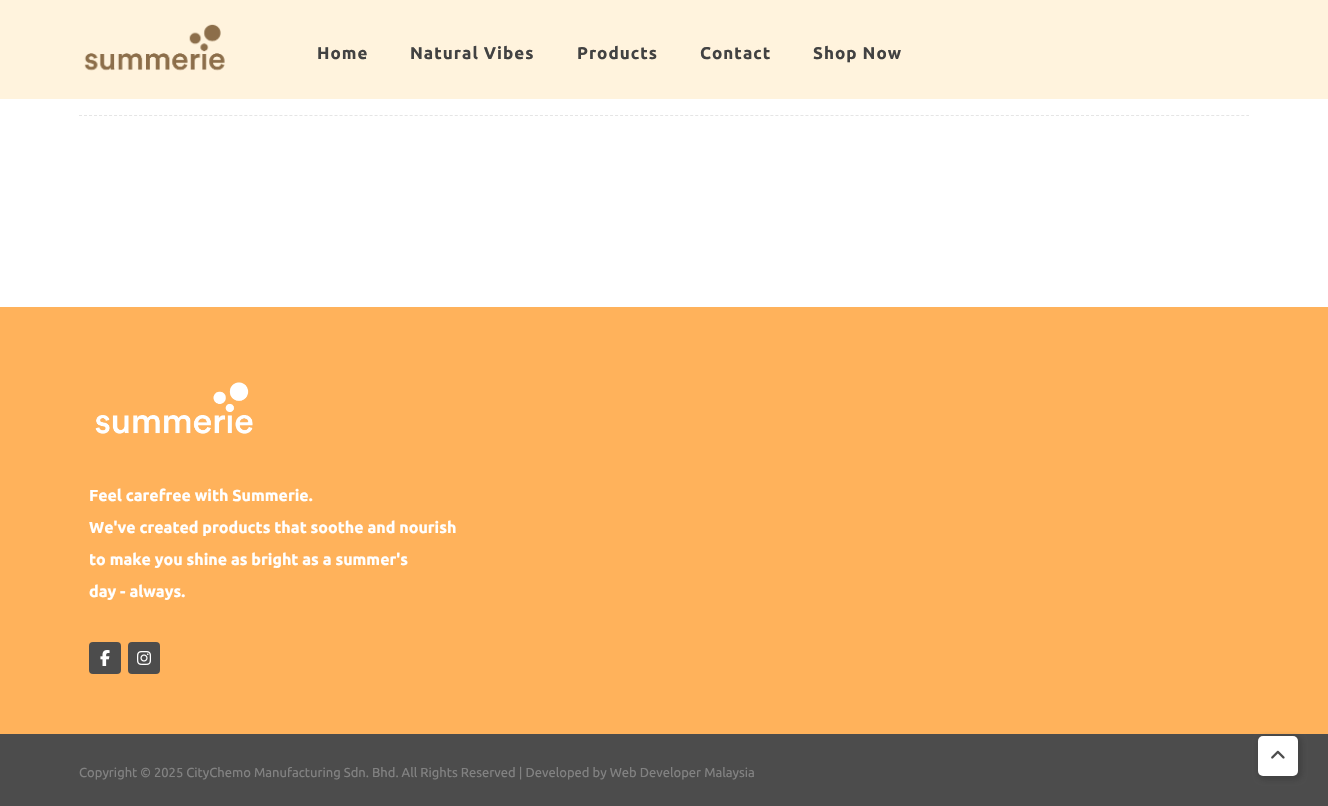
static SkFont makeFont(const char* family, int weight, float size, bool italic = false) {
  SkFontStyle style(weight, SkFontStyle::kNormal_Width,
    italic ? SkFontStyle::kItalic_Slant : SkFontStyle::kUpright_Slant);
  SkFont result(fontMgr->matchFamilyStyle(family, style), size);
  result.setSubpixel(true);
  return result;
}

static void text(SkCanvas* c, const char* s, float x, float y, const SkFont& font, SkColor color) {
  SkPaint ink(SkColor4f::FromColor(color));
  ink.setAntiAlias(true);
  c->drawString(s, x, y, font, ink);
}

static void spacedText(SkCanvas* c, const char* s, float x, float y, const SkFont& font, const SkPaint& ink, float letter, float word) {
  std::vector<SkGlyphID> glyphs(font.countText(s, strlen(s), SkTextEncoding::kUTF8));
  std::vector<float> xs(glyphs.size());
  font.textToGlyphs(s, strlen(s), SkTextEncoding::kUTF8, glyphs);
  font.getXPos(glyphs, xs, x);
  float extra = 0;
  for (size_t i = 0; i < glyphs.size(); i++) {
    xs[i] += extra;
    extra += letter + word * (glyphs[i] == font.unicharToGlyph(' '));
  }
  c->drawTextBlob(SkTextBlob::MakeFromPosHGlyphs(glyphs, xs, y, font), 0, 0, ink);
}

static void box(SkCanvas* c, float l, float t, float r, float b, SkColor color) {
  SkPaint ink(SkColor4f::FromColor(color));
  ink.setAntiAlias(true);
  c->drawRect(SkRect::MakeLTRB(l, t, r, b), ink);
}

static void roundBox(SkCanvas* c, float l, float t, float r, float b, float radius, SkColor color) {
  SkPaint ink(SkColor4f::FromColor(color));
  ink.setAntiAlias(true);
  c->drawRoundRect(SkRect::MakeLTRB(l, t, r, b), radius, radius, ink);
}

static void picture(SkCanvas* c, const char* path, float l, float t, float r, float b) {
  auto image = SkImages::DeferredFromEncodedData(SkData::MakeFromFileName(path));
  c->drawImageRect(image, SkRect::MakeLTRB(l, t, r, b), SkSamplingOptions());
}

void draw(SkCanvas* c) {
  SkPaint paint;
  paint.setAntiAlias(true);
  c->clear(0xffffffff);
  box(c, 0, 0, 1328, 99, 0xfffff3dd);
  picture(c, "img_01.png", 84, 24, 225, 71);
  SkFont face1 = makeFont("Ubuntu", 700, 17);
  paint.setColor(0xff424242);
  spacedText(c, "Home", 317, 59, face1, paint, 1, 0);
  spacedText(c, "Natural Vibes", 410, 59, face1, paint, 1, 0);
  spacedText(c, "Products", 577, 59, face1, paint, 1, 0);
  spacedText(c, "Contact", 700, 59, face1, paint, 1, 0);
  spacedText(c, "Shop Now", 813, 59, face1, paint, 1, 0);
  paint.setStyle(SkPaint::kStroke_Style);
  paint.setStrokeWidth(1);
  paint.setColor(0xffe5e5e5);
  paint.setPathEffect(SkDashPathEffect::Make({{3, 2.01f}}, 0));
  c->drawPath(SkPathBuilder().moveTo(79, 115.5f).lineTo(1249, 115.5f).detach(), paint);
  paint.setPathEffect(nullptr);
  box(c, 0, 307, 1328, 734, 0xffffb25b);
  picture(c, "img_02.png", 95, 382, 253, 434);
  SkFont face2 = makeFont("Ubuntu", 700, 16);
  text(c, "Feel carefree with Summerie.", 89, 501, face2, 0xffffffff);
  text(c, "We've created products that soothe and nourish", 89, 533, face2, 0xffffffff);
  text(c, "to make you shine as bright as a summer's", 89, 565, face2, 0xffffffff);
  text(c, "day - always.", 89, 597, face2, 0xffffffff);
  roundBox(c, 89, 642, 121, 674, 4, 0xff4c4c4c);
  picture(c, "img_03.png", 100, 650, 110, 666);
  roundBox(c, 128, 642, 160, 674, 4, 0xff4c4c4c);
  picture(c, "img_04.png", 137, 651, 151, 665);
  box(c, 0, 734, 1328, 806, 0xff4c4c4c);
  SkFont face3 = makeFont("Ubuntu", 400, 13);
  text(c, "Copyright © 2025 CityChemo Manufacturing Sdn. Bhd. All Rights Reserved | Developed by Web Developer Malaysia", 79, 777, face3, 0xff828282);
  paint.setStyle(SkPaint::kFill_Style);
  paint.setColor(0x4a262626);
  paint.setMaskFilter(SkMaskFilter::MakeBlur(kNormal_SkBlurStyle, 2.5f));
  c->drawRoundRect(SkRect::MakeLTRB(1258, 736, 1302, 780), 7, 7, paint);
  paint.setMaskFilter(nullptr);
  roundBox(c, 1258, 736, 1298, 776, 5, 0xffffffff);
  picture(c, "img_05.png", 1271, 750, 1285, 759);
}
